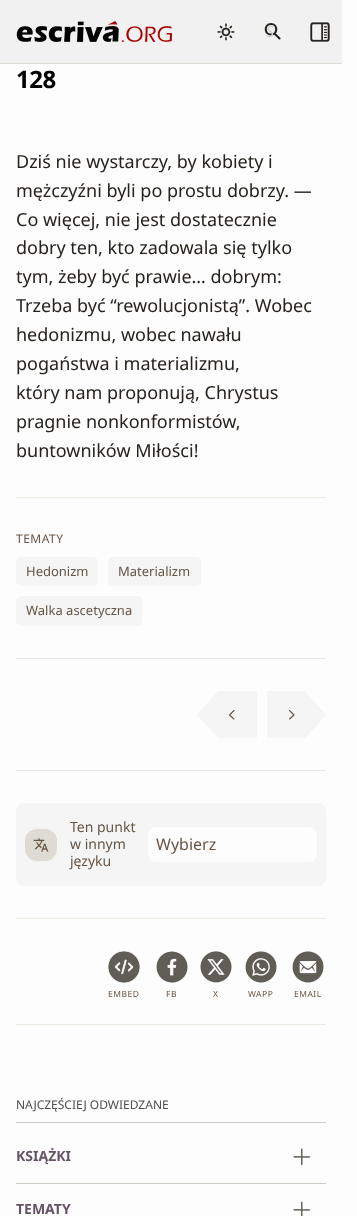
<svg xmlns="http://www.w3.org/2000/svg" width="357" height="1216" viewBox="0 0 357 1216">
  <style>
    .t1 { font: italic 16px Noto Sans; fill: #d2d2d1; }
    .t2 { font: bold 24px Noto Sans; letter-spacing: -0.5px; fill: #000; }
    .t3 { font: 18px Noto Sans; fill: #26221e; }
    .t4 { font: 12px Noto Sans; letter-spacing: 0.5px; fill: #654; }
    .t5 { font: 13px Noto Sans; fill: #654; }
    .t6 { font: 14px Noto Sans; fill: #654; }
    .t7 { font: 16px Noto Sans; fill: #654; }
    .t8 { font: 8.5px Noto Sans; letter-spacing: 0.5px; fill: #654; }
    .t9 { font: 12px Noto Sans; fill: #4d4d4d; }
    .t10 { font: bold 14px Noto Sans; fill: #656; }
  </style>
  <rect width="100%" height="100%" fill="#fdfdfd"/>
  <rect x="0" y="0" width="342" height="63" fill="#f1f1f1"/>
  <rect x="0" y="63" width="342" height="1" fill="#dedbd4"/>
  <image x="16" y="21" width="156" height="21" href="images/1.png"/>
  <image x="217" y="23" width="18" height="18" href="images/2.png"/>
  <path d="M274.5 33.5L279.5 38.5M271 24C278 24 278 34.5 271 34.5C264 34.5 264 24 271 24Z" fill="none" stroke="#26221e" stroke-width="2.1" stroke-linecap="round"/>
  <text x="266" y="37" class="t1">S</text>
  <image x="310" y="22" width="20" height="20" href="images/3.png"/>
  <text x="16" y="88" class="t2">128</text>
  <text x="16" y="168" class="t3">Dziś nie wystarczy, by kobiety i</text>
  <text x="16" y="197" class="t3">mężczyźni byli po prostu dobrzy. —</text>
  <text x="16" y="226" class="t3">Co więcej, nie jest dostatecznie</text>
  <text x="16" y="254" class="t3">dobry ten, kto zadowala się tylko</text>
  <text x="16" y="283" class="t3">tym, żeby być prawie… dobrym:</text>
  <text x="16" y="312" class="t3">Trzeba być “rewolucjonistą”. Wobec</text>
  <text x="16" y="341" class="t3">hedonizmu, wobec nawału</text>
  <text x="16" y="370" class="t3">pogaństwa i materializmu,</text>
  <text x="16" y="399" class="t3">który nam proponują, Chrystus</text>
  <text x="16" y="428" class="t3">pragnie nonkonformistów,</text>
  <text x="16" y="457" class="t3">buntowników Miłości!</text>
  <rect x="16" y="497" width="310" height="1" fill="#ece9e3"/>
  <text x="16" y="543" class="t4">TEMATY</text>
  <rect x="16" y="557" width="82" height="29" rx="5" fill="#f5f5f5"/>
  <text x="26" y="576" class="t5">Hedonizm</text>
  <rect x="108" y="557" width="93" height="29" rx="5" fill="#f5f5f5"/>
  <text x="118" y="576" class="t5">Materializm</text>
  <rect x="16" y="596" width="126" height="30" rx="5" fill="#f5f5f5"/>
  <text x="26" y="615" class="t5">Walka ascetyczna</text>
  <rect x="16" y="658" width="310" height="1" fill="#ece9e3"/>
  <path d="M218 738L197 715L218 691H257V738Z" fill="#f5f5f5"/>
  <path d="M234 719L229.5 715L234 710.5" fill="none" stroke="#654" stroke-width="1.1" stroke-linecap="round" stroke-linejoin="round"/>
  <path d="M267 691H305L326 715L305 738H267Z" fill="#f5f5f5"/>
  <path d="M289.5 710.5L294 715L289.5 719" fill="none" stroke="#654" stroke-width="1.1" stroke-linecap="round" stroke-linejoin="round"/>
  <rect x="16" y="770" width="310" height="1" fill="#ece9e3"/>
  <rect x="16" y="803" width="310" height="83" rx="8" fill="#f5f5f5"/>
  <rect x="25" y="829" width="32" height="32" rx="12" fill="#dedbd4"/>
  <image x="33" y="838" width="16" height="14" href="images/4.png"/>
  <text x="70" y="832" class="t6">Ten punkt</text>
  <text x="70" y="849" class="t6">w innym</text>
  <text x="70" y="866" class="t6">języku</text>
  <rect x="148" y="827" width="169" height="35" rx="8" fill="#fdfdfd"/>
  <text x="156" y="850" class="t7">Wybierz</text>
  <rect x="16" y="918" width="310" height="1" fill="#ece9e3"/>
  <rect x="16" y="1024" width="310" height="1" fill="#ece9e3"/>
  <image x="108" y="951" width="32" height="32" href="images/5.png"/>
  <text x="108" y="997" class="t8">EMBED</text>
  <image x="156" y="951" width="32" height="32" href="images/6.png"/>
  <text x="166" y="997" class="t8">FB</text>
  <image x="200" y="951" width="32" height="32" href="images/7.png"/>
  <text x="213" y="997" class="t8">X</text>
  <image x="245" y="951" width="32" height="32" href="images/8.png"/>
  <text x="248" y="997" class="t8">WAPP</text>
  <image x="292" y="951" width="32" height="32" href="images/9.png"/>
  <text x="294" y="997" class="t8">EMAIL</text>
  <rect x="16" y="1122" width="310" height="1" fill="#cecbc4"/>
  <text x="16" y="1109" class="t9">NAJCZĘŚCIEJ ODWIEDZANE</text>
  <rect x="16" y="1183" width="310" height="1" fill="#cecbc4"/>
  <text x="16" y="1161" class="t10">KSIĄŻKI</text>
  <image x="293" y="1148" width="18" height="18" href="images/10.png"/>
  <text x="16" y="1214" class="t10">TEMATY</text>
  <image x="293" y="1201" width="18" height="15" href="images/11.png"/>
</svg>
